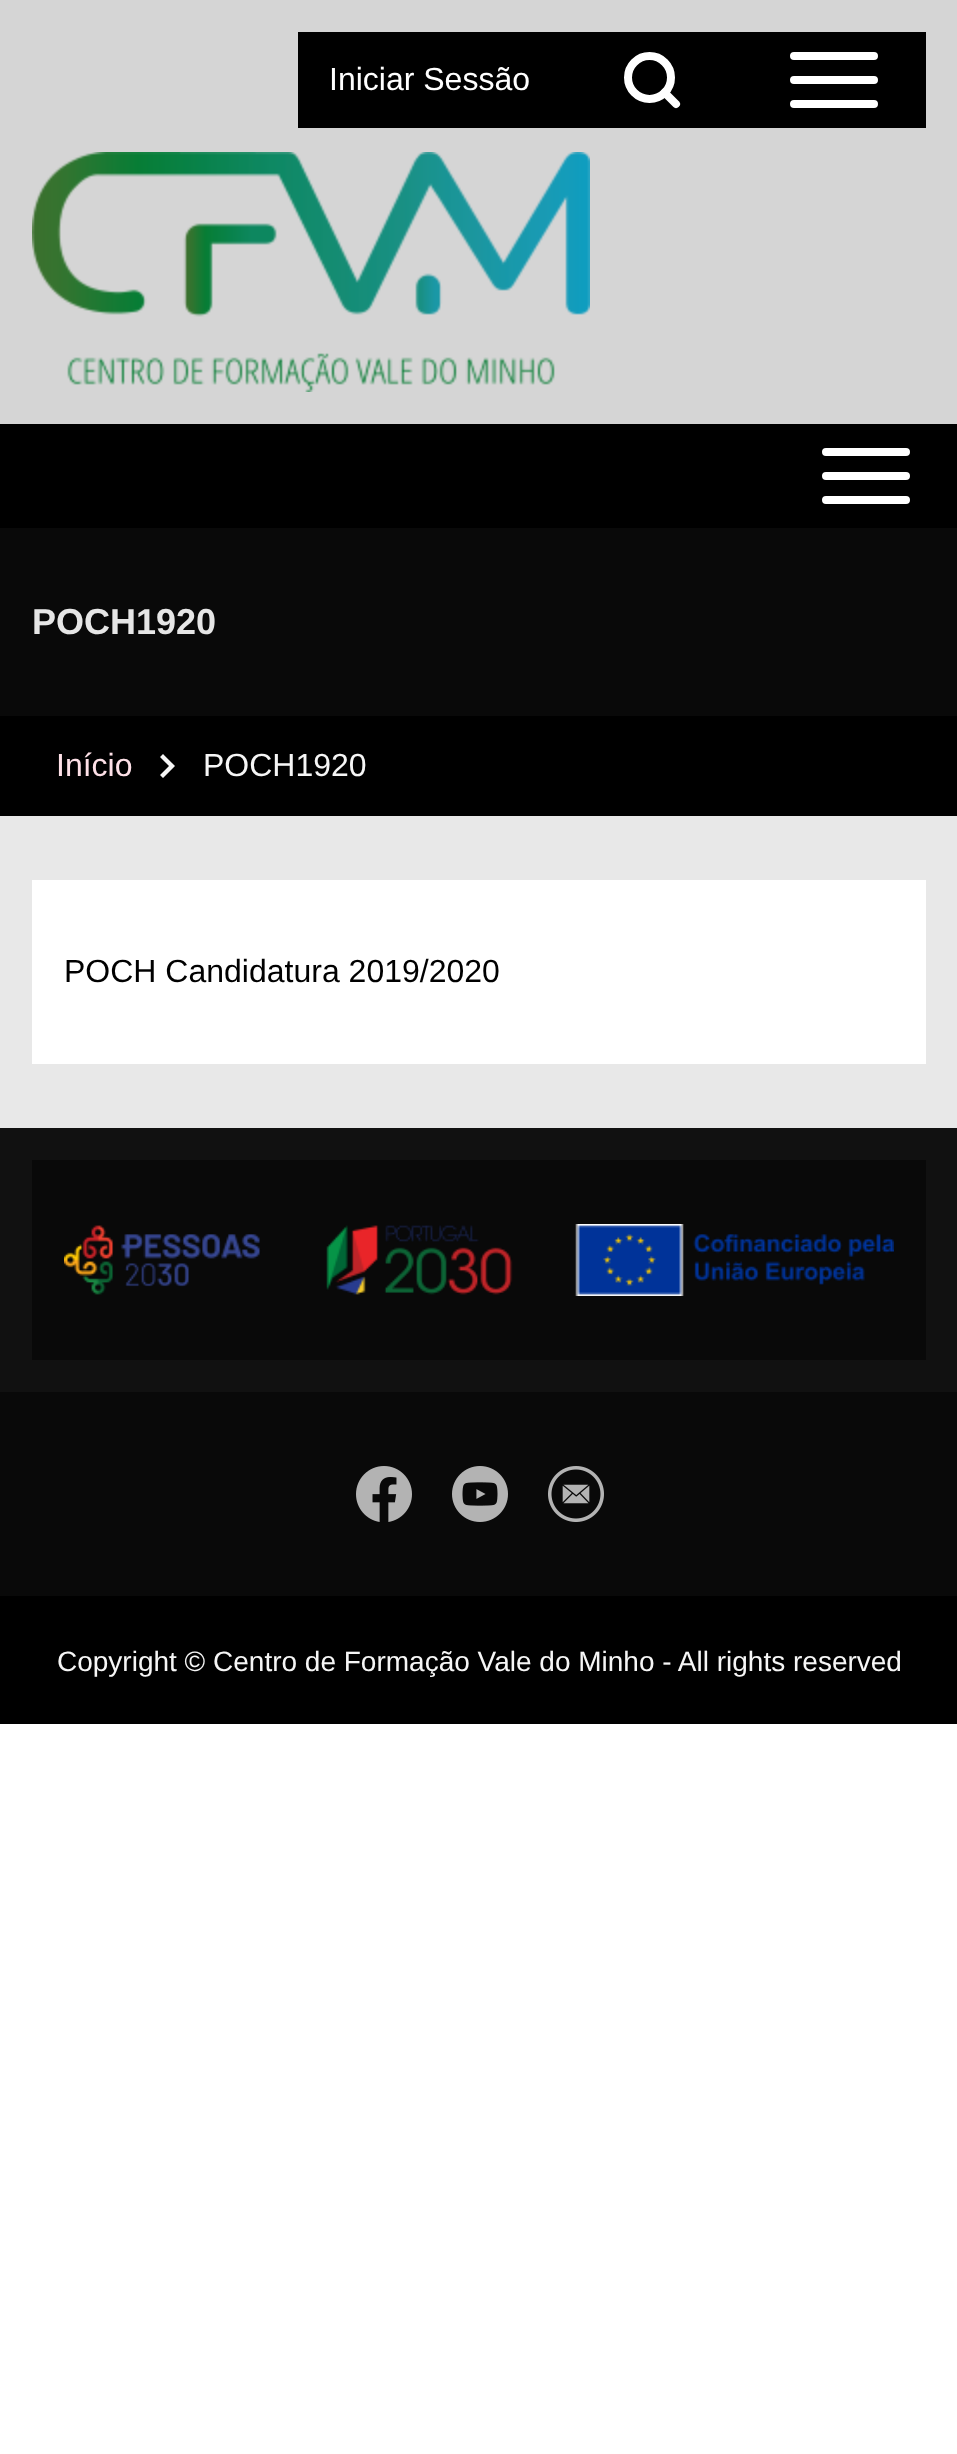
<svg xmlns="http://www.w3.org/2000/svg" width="957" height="2454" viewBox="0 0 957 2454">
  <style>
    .t1 { font: 32px Liberation Sans; fill: #fff; }
    .t2 { font: bold 36px Liberation Sans; fill: #e6e6e6; }
    .t3 { font: 32px Liberation Sans; fill: #fde0e7; }
    .t4 { font: 32px Liberation Sans; fill: #f6f6f6; }
    .t5 { font: 32px Liberation Sans; fill: #000; }
    .t6 { font: 28px Liberation Sans; fill: #f6f6f6; }
  </style>
  <rect width="100%" height="100%" fill="#fff"/>
  <rect x="0" y="0" width="957" height="424" fill="#d5d5d5"/>
  <rect x="298" y="32" width="628" height="96" fill="#000"/>
  <circle cx="649.5" cy="77.5" r="21.5" fill="none" stroke="#fff" stroke-width="8"/>
  <path d="M676 104L664.5 92.5" fill="none" stroke="#fff" stroke-width="8" stroke-linecap="round" stroke-linejoin="round"/>
  <text x="329" y="90" class="t1">Iniciar Sessão</text>
  <path d="M794 104H874Z" fill="none" stroke="#fff" stroke-width="8" stroke-linecap="round" stroke-linejoin="round"/>
  <path d="M794 80H874Z" fill="none" stroke="#fff" stroke-width="8" stroke-linecap="round" stroke-linejoin="round"/>
  <path d="M794 56H874Z" fill="none" stroke="#fff" stroke-width="8" stroke-linecap="round" stroke-linejoin="round"/>
  <image x="32" y="152" width="558" height="240" href="images/1.png"/>
  <rect x="0" y="424" width="957" height="104" fill="#000"/>
  <path d="M826 500H906Z" fill="none" stroke="#fff" stroke-width="8" stroke-linecap="round" stroke-linejoin="round"/>
  <path d="M826 476H906Z" fill="none" stroke="#fff" stroke-width="8" stroke-linecap="round" stroke-linejoin="round"/>
  <path d="M826 452H906Z" fill="none" stroke="#fff" stroke-width="8" stroke-linecap="round" stroke-linejoin="round"/>
  <rect x="0" y="528" width="957" height="188" fill="#090909"/>
  <text x="32" y="634" class="t2">POCH1920</text>
  <rect x="0" y="716" width="957" height="100" fill="#000"/>
  <text x="56" y="776" class="t3">Início</text>
  <path d="M169 766L160 757L163 754L175 766L163 778L160 775Z" fill="#f6f6f6"/>
  <text x="203" y="776" class="t4">POCH1920</text>
  <rect x="0" y="816" width="957" height="312" fill="#e8e8e8"/>
  <rect x="32" y="880" width="894" height="184" fill="#fff"/>
  <text x="64" y="982" class="t5">POCH Candidatura 2019/2020</text>
  <rect x="0" y="1128" width="957" height="264" fill="#111"/>
  <rect x="32" y="1160" width="894" height="200" fill="#090909"/>
  <image x="64" y="1224" width="830" height="72" href="images/2.png"/>
  <rect x="0" y="1392" width="957" height="204" fill="#090909"/>
  <image x="356" y="1466" width="56" height="56" href="images/3.png"/>
  <image x="452" y="1466" width="56" height="56" href="images/4.png"/>
  <image x="548" y="1466" width="56" height="56" href="images/5.png"/>
  <rect x="0" y="1596" width="957" height="128" fill="#000"/>
  <text x="57" y="1671" class="t6">Copyright © Centro de Formação Vale do Minho - All rights reserved</text>
</svg>
